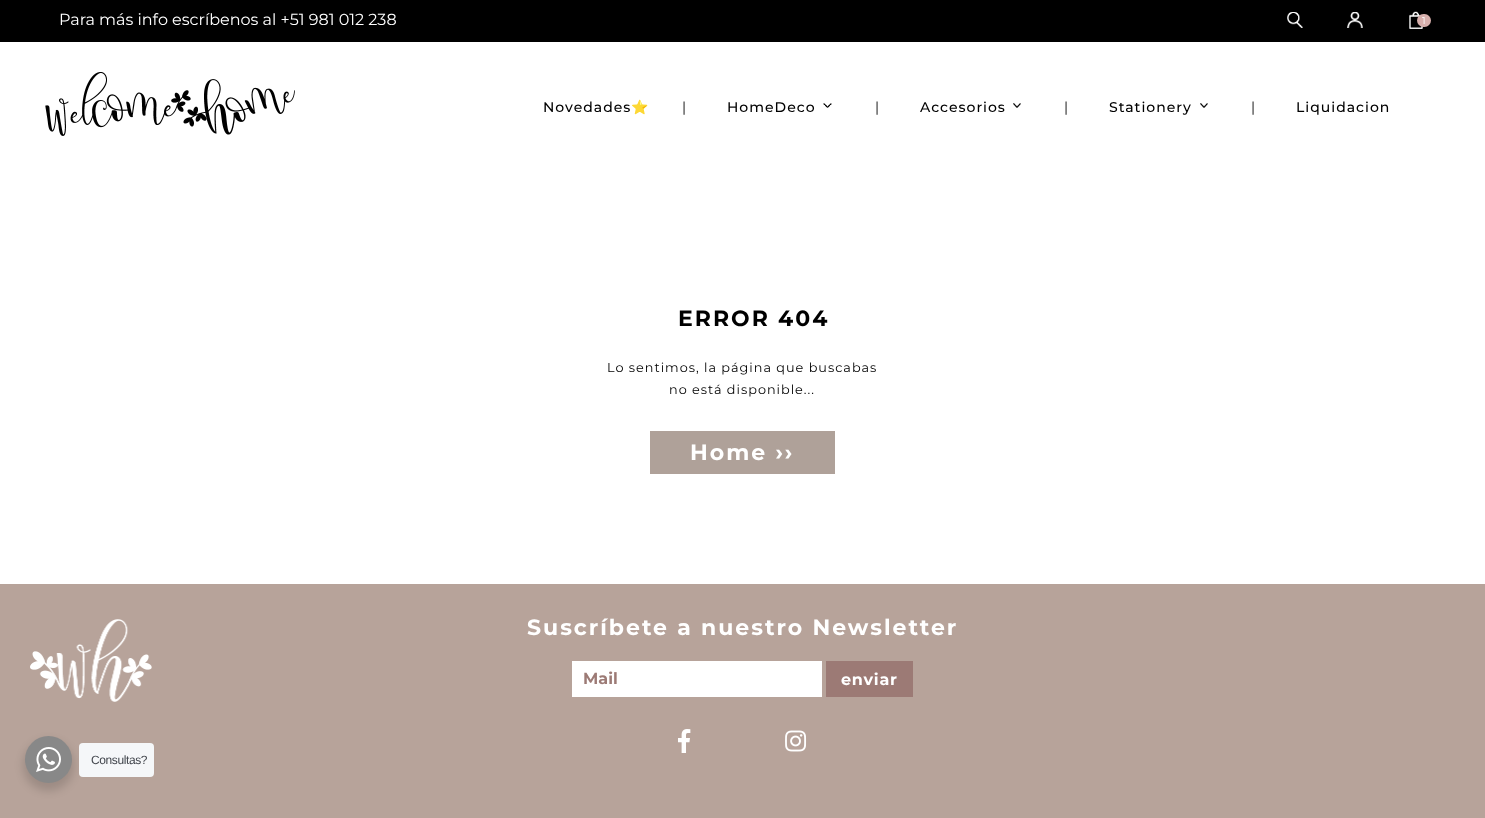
<svg xmlns="http://www.w3.org/2000/svg" width="1485" height="818" viewBox="0 0 1485 818">
  <style>
    .t1 { font: 16px Montserrat; fill: #fff; }
    .t2 { font: 10px Montserrat; fill: #fff; }
    .t3 { font: 500 14px Montserrat; letter-spacing: 1px; fill: #000; }
    .t4 { font: 14px Noto Color Emoji; letter-spacing: 1px; fill: #000; }
    .t5 { font: 14px Montserrat; fill: #000; }
    .t6 { font: bold 22px Montserrat; letter-spacing: 2px; fill: #000; }
    .t7 { font: 12.8px Montserrat; letter-spacing: 1px; fill: #000; }
    .t8 { font: bold 22px Montserrat; letter-spacing: 2px; fill: #fff; }
    .t9 { font: bold 16px Montserrat; fill: #9c7a75; }
    .t10 { font: bold 16px Montserrat; letter-spacing: 0.75px; fill: #fff; }
    .t11 { font: 12px Liberation Sans; letter-spacing: -0.4px; fill: #43474e; }
  </style>
  <rect width="100%" height="100%" fill="#fff"/>
  <rect x="0" y="0" width="1485" height="42" fill="#000"/>
  <text x="59" y="25" class="t1">Para más info escríbenos al +51 981 012 238</text>
  <image x="1287" y="12" width="16" height="16" href="images/1.png"/>
  <image x="1347" y="12" width="16" height="16" href="images/2.png"/>
  <image x="1409" y="11" width="14" height="18" href="images/3.png"/>
  <rect x="1417" y="14" width="14" height="13" rx="6.5" fill="#d8b0ad"/>
  <text x="1422" y="24" class="t2">1</text>
  <image x="45" y="72" width="250" height="64" href="images/4.png"/>
  <text x="543" y="112" class="t3">Novedades</text>
  <text x="631" y="112" class="t4">⭐️</text>
  <text x="682" y="112" class="t5">|</text>
  <text x="727" y="112" class="t3">HomeDeco</text>
  <image x="823" y="103" width="9" height="5" href="images/5.png"/>
  <text x="875" y="112" class="t5">|</text>
  <text x="920" y="112" class="t3">Accesorios</text>
  <image x="1013" y="103" width="8" height="5" href="images/6.png"/>
  <text x="1064" y="112" class="t5">|</text>
  <text x="1109" y="112" class="t3">Stationery</text>
  <image x="1200" y="103" width="8" height="5" href="images/6.png"/>
  <text x="1251" y="112" class="t5">|</text>
  <text x="1296" y="112" class="t3">Liquidacion</text>
  <text x="678" y="326" class="t6">ERROR 404</text>
  <text x="607" y="372" class="t7">Lo sentimos, la página que buscabas</text>
  <text x="669" y="394" class="t7">no está disponible...</text>
  <rect x="650" y="431" width="185" height="43" fill="#afa199"/>
  <text x="690" y="460" class="t8">Home ››</text>
  <rect x="0" y="584" width="1485" height="234" fill="#b7a39a"/>
  <image x="30" y="619" width="122" height="83" href="images/7.png"/>
  <text x="527" y="635" class="t8">Suscríbete a nuestro Newsletter</text>
  <rect x="572" y="661" width="250" height="36" fill="#fff"/>
  <text x="583" y="684" class="t9">Mail</text>
  <rect x="826" y="661" width="87" height="36" fill="#9c7a75"/>
  <text x="841" y="685" class="t10">enviar</text>
  <image x="678" y="729" width="13" height="24" href="images/8.png"/>
  <image x="785" y="730" width="22" height="22" href="images/9.png"/>
  <rect x="23" y="740" width="51" height="51" rx="25.5" fill="#00000024" filter="blur(4px)"/>
  <circle cx="48.5" cy="759.5" r="23.5" fill="#888"/>
  <image x="36" y="747" width="25" height="25" href="images/10.png"/>
  <rect x="79" y="743" width="75" height="34" rx="4" fill="#f5f7f9"/>
  <text x="91" y="764" class="t11">Consultas?</text>
</svg>
